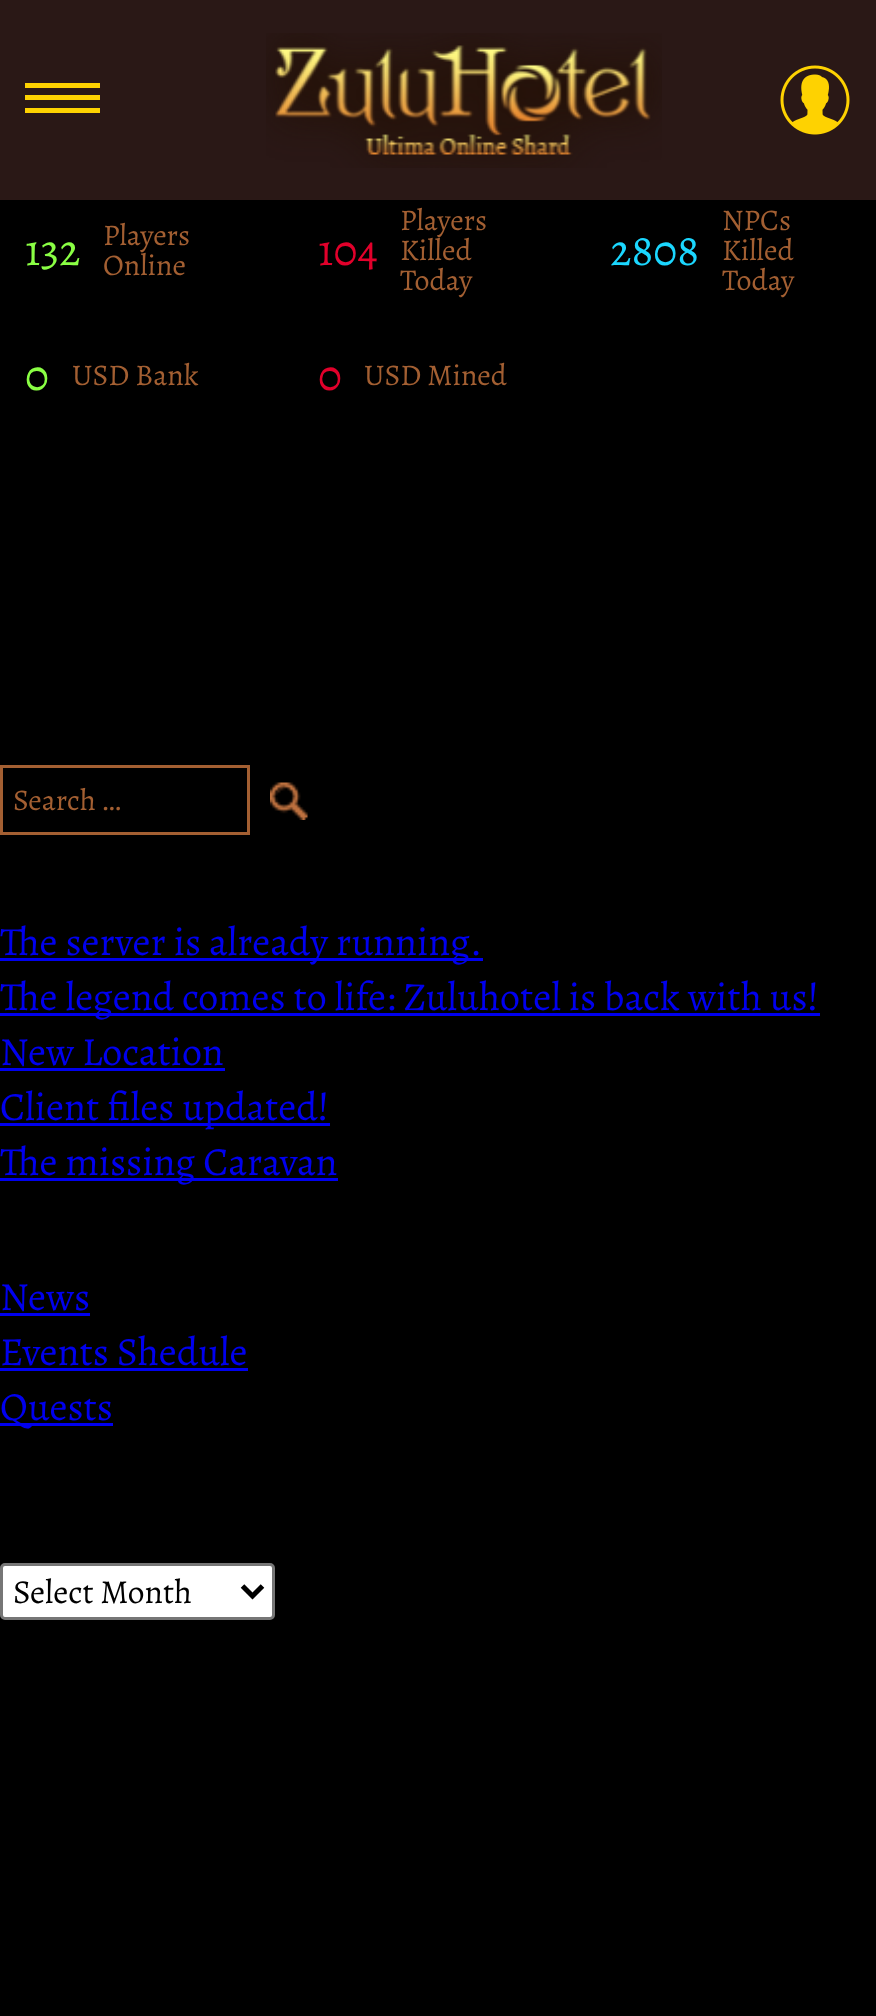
<svg xmlns="http://www.w3.org/2000/svg" width="876" height="2016" viewBox="0 0 876 2016">
  <style>
    .t1 { font: 45px Alegreya; fill: #8aff44; }
    .t2 { font: 30px Alegreya; fill: #a35f32; }
    .t3 { font: 45px Alegreya; fill: #e2002b; }
    .t4 { font: 45px Alegreya; fill: #1bd7ff; }
    .t5 { font: 40px Alegreya; fill: #00e; }
    .t6 { font: 33.5px Alegreya; fill: #000; }
  </style>
  <rect width="100%" height="100%" fill="#000"/>
  <rect x="0" y="0" width="876" height="200" fill="#2a1816"/>
  <rect x="25" y="83" width="75" height="5" fill="#fed201"/>
  <rect x="25" y="95" width="75" height="5" fill="#fed201"/>
  <rect x="25" y="108" width="75" height="5" fill="#fed201"/>
  <image x="266" y="33" width="396" height="135" href="images/1.png"/>
  <image x="780" y="65" width="70" height="70" href="images/2.png"/>
  <text x="25" y="265" class="t1">132</text>
  <text x="103" y="245" class="t2">Players</text>
  <text x="103" y="275" class="t2">Online</text>
  <text x="318" y="265" class="t3">104</text>
  <text x="400" y="230" class="t2">Players</text>
  <text x="400" y="260" class="t2">Killed</text>
  <text x="400" y="290" class="t2">Today</text>
  <text x="610" y="265" class="t4">2808</text>
  <text x="722" y="230" class="t2">NPCs</text>
  <text x="722" y="260" class="t2">Killed</text>
  <text x="722" y="290" class="t2">Today</text>
  <text x="25" y="390" class="t1">0</text>
  <text x="72" y="385" class="t2">USD Bank</text>
  <text x="318" y="390" class="t3">0</text>
  <text x="364" y="385" class="t2">USD Mined</text>
  <rect x="1.5" y="766.5" width="247" height="67" fill="none" stroke="#a35f32" stroke-width="3"/>
  <text x="13" y="810" class="t2">Search …</text>
  <image x="270" y="782" width="38" height="38" href="images/3.png"/>
  <rect x="0" y="958" width="483" height="3" fill="#00e"/>
  <text x="0" y="955" class="t5">The server is already running.</text>
  <rect x="0" y="1013" width="820" height="3" fill="#00e"/>
  <text x="0" y="1010" class="t5">The legend comes to life: Zuluhotel is back with us!</text>
  <text x="0" y="1065" class="t5">New Location</text>
  <rect x="0" y="1068" width="225" height="3" fill="#00e"/>
  <rect x="0" y="1123" width="330" height="3" fill="#00e"/>
  <text x="0" y="1120" class="t5">Client files updated!</text>
  <rect x="0" y="1178" width="338" height="3" fill="#00e"/>
  <text x="0" y="1175" class="t5">The missing Caravan</text>
  <text x="0" y="1310" class="t5">News</text>
  <rect x="0" y="1313" width="90" height="3" fill="#00e"/>
  <text x="0" y="1365" class="t5">Events Shedule</text>
  <rect x="0" y="1368" width="248" height="3" fill="#00e"/>
  <rect x="0" y="1423" width="113" height="3" fill="#00e"/>
  <text x="0" y="1420" class="t5">Quests</text>
  <rect x="1.5" y="1564.5" width="272" height="54" rx="3.5" fill="#fff" stroke="#767676" stroke-width="3"/>
  <path d="M242.5 1586L252.5 1596L262.5 1586" fill="none" stroke="#000" stroke-width="5"/>
  <text x="13" y="1603" class="t6">Select Month</text>
</svg>
